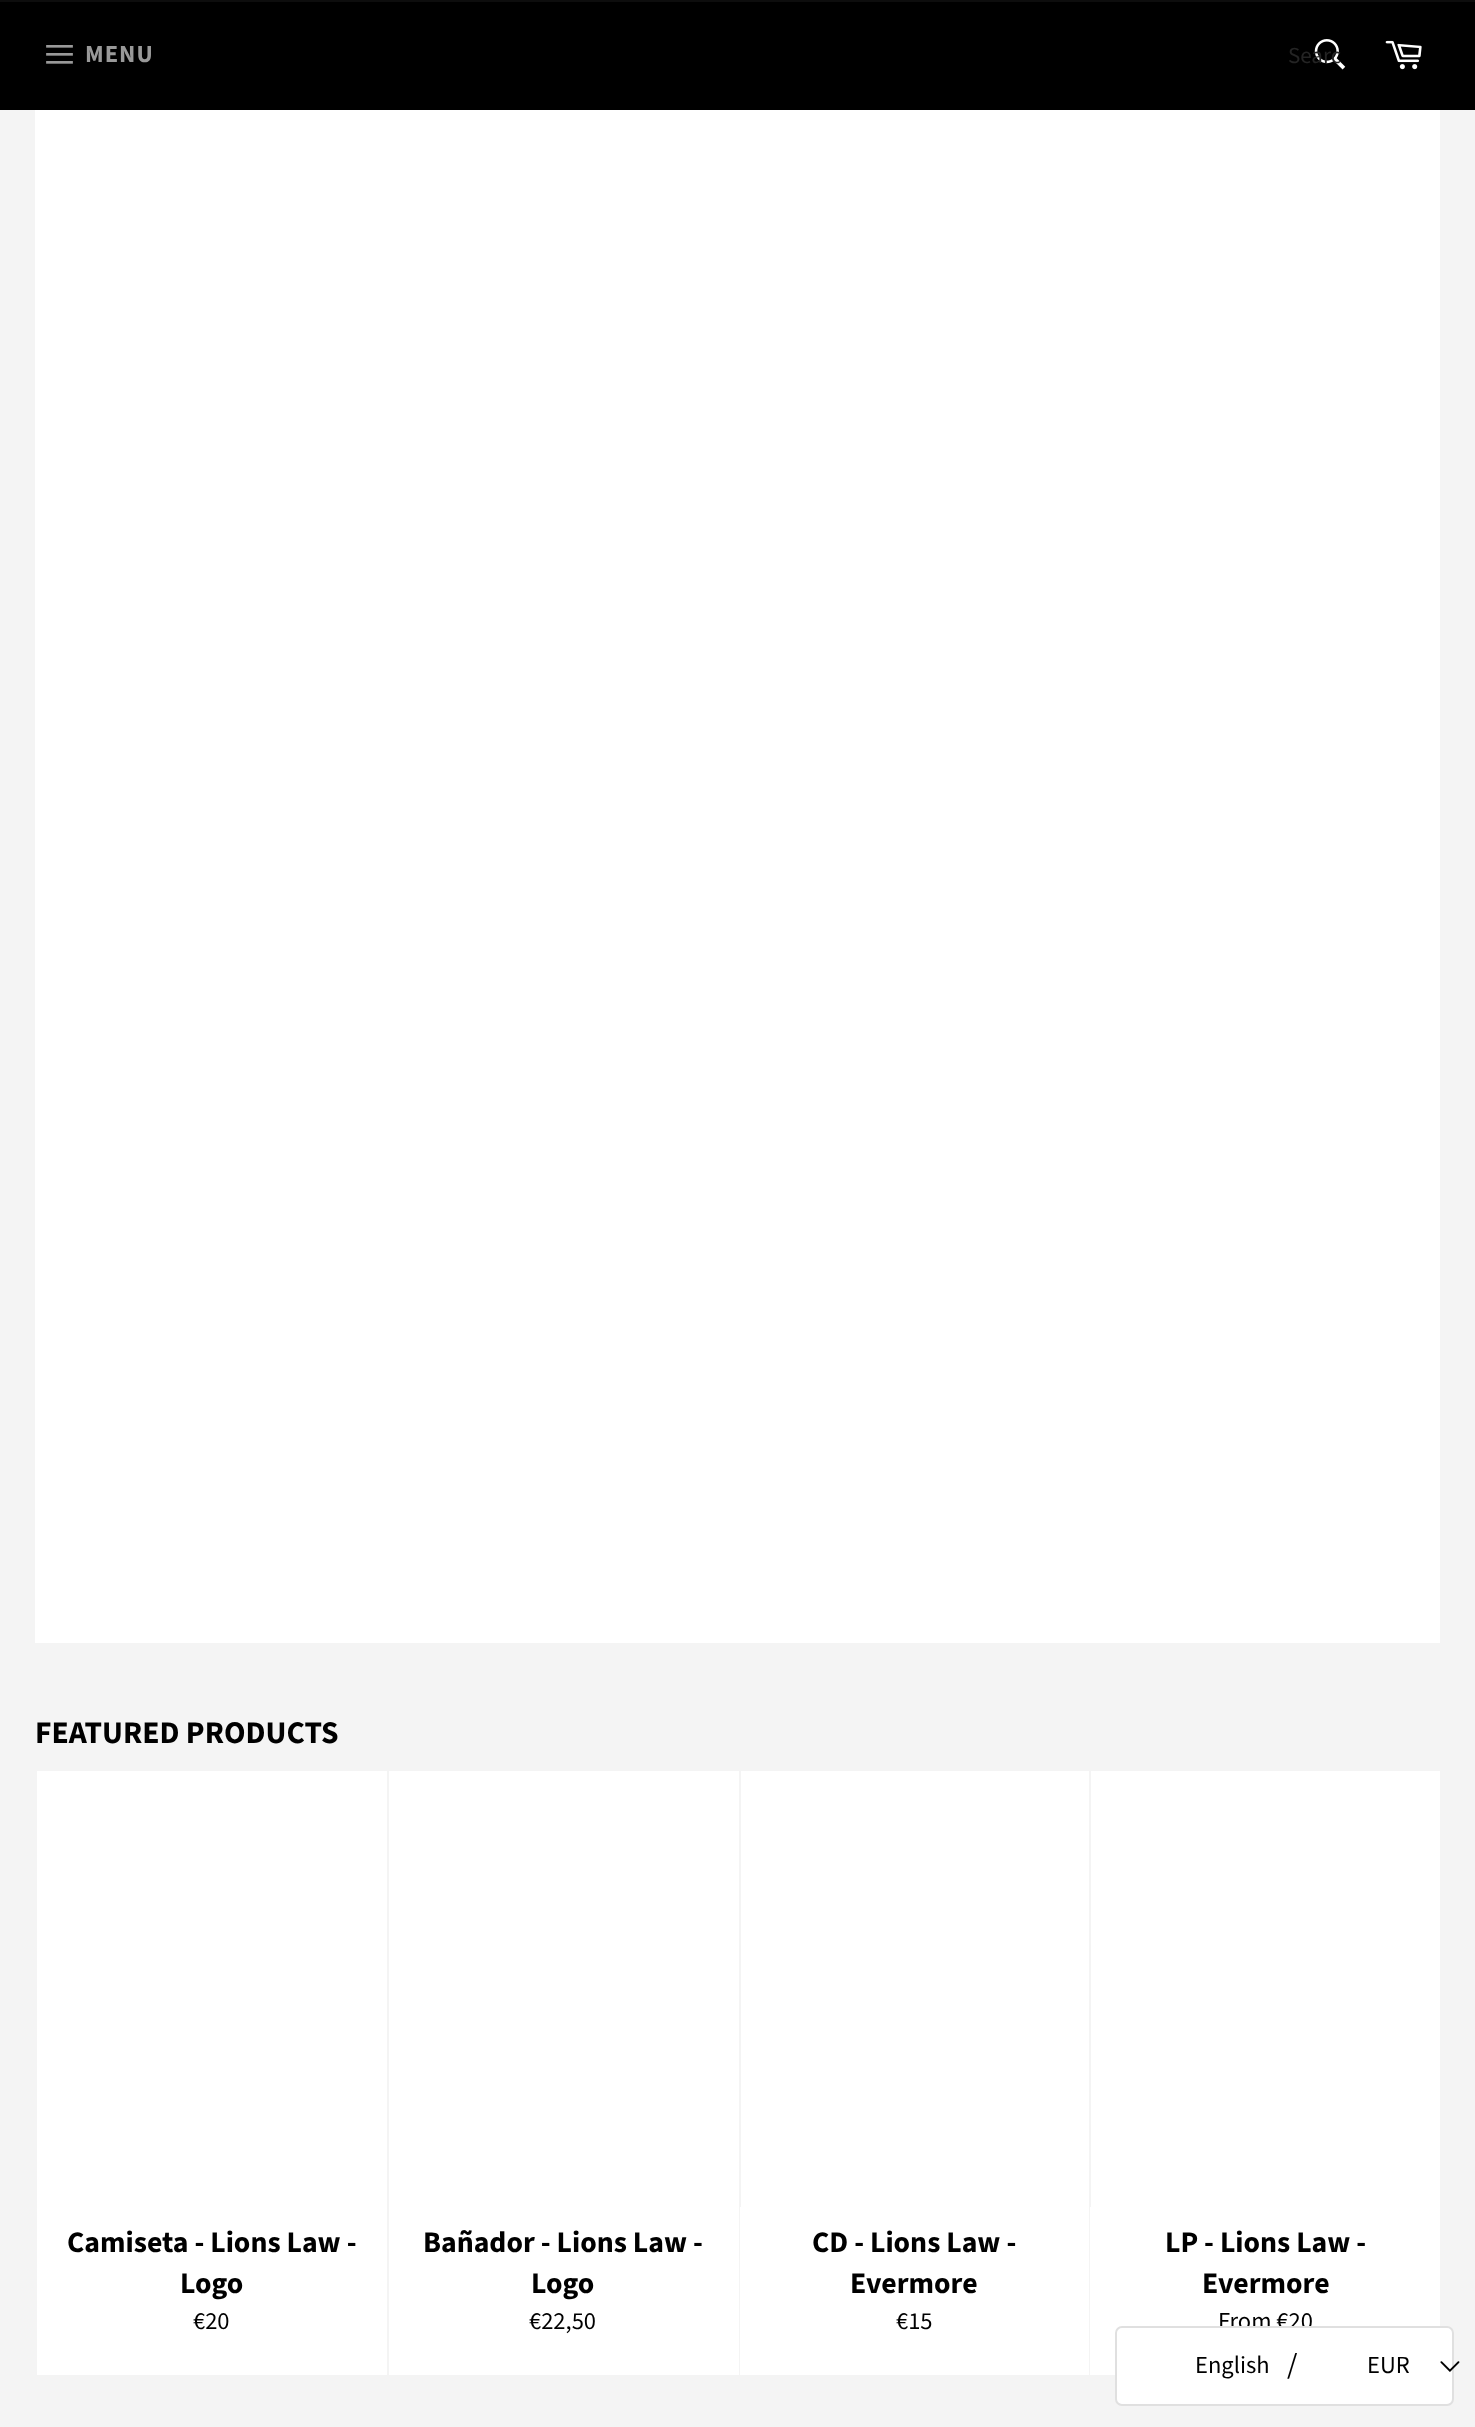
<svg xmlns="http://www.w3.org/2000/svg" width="1475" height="2427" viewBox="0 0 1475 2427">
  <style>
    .t1 { font: bold 24.5px Source Sans Pro; letter-spacing: 1px; fill: #999; }
    .t2 { font: 23px Source Sans Pro; fill: #242424; }
    .t3 { font: bold 31.5px Source Sans Pro; fill: #000; }
    .t4 { font: bold 29.75px Source Sans Pro; fill: #000; }
    .t5 { font: 24.5px Source Sans Pro; fill: #000; }
    .t6 { font: 29.75px Source Sans Pro; fill: #000; }
  </style>
  <rect width="100%" height="100%" fill="#f4f4f4"/>
  <rect x="0" y="2" width="1475" height="108" fill="#000"/>
  <rect x="0" y="0" width="1475" height="2" fill="#0d0d0d"/>
  <image x="46" y="45" width="27" height="19" href="images/1.png"/>
  <text x="85" y="62" class="t1">MENU</text>
  <image x="1314" y="39" width="32" height="31" href="images/2.png"/>
  <text x="1288" y="63" class="t2">Searc</text>
  <image x="1385" y="40" width="37" height="30" href="images/3.png"/>
  <rect x="35" y="110" width="1405" height="1533" fill="#fff"/>
  <text x="35" y="1743" class="t3">FEATURED PRODUCTS</text>
  <rect x="37" y="1771" width="350" height="604" fill="#fff"/>
  <text x="67" y="2252" class="t4">Camiseta - Lions Law -</text>
  <text x="180" y="2293" class="t4">Logo</text>
  <text x="193" y="2329" class="t5">€20</text>
  <rect x="389" y="1771" width="350" height="604" fill="#fff"/>
  <text x="423" y="2252" class="t4">Bañador - Lions Law -</text>
  <text x="531" y="2293" class="t4">Logo</text>
  <text x="529" y="2329" class="t5">€22,50</text>
  <rect x="741" y="1771" width="348" height="436" fill="#fff"/>
  <rect x="740" y="2207" width="349" height="168" fill="#fff"/>
  <text x="812" y="2252" class="t4">CD - Lions Law -</text>
  <text x="850" y="2293" class="t4">Evermore</text>
  <text x="896" y="2329" class="t5">€15</text>
  <rect x="1091" y="1771" width="349" height="436" fill="#fff"/>
  <rect x="1090" y="2207" width="350" height="168" fill="#fff"/>
  <text x="1165" y="2252" class="t4">LP - Lions Law -</text>
  <text x="1202" y="2293" class="t4">Evermore</text>
  <text x="1218" y="2329" class="t5">From €20</text>
  <rect x="1116" y="2327" width="337" height="78" rx="6" fill="#fff" stroke="#e0e0e0" stroke-width="2"/>
  <text x="1195" y="2373" class="t5">English</text>
  <text x="1287" y="2374" class="t6">/</text>
  <text x="1367" y="2373" class="t5">EUR</text>
  <image x="1440" y="2361" width="20" height="11" href="images/4.png"/>
</svg>
